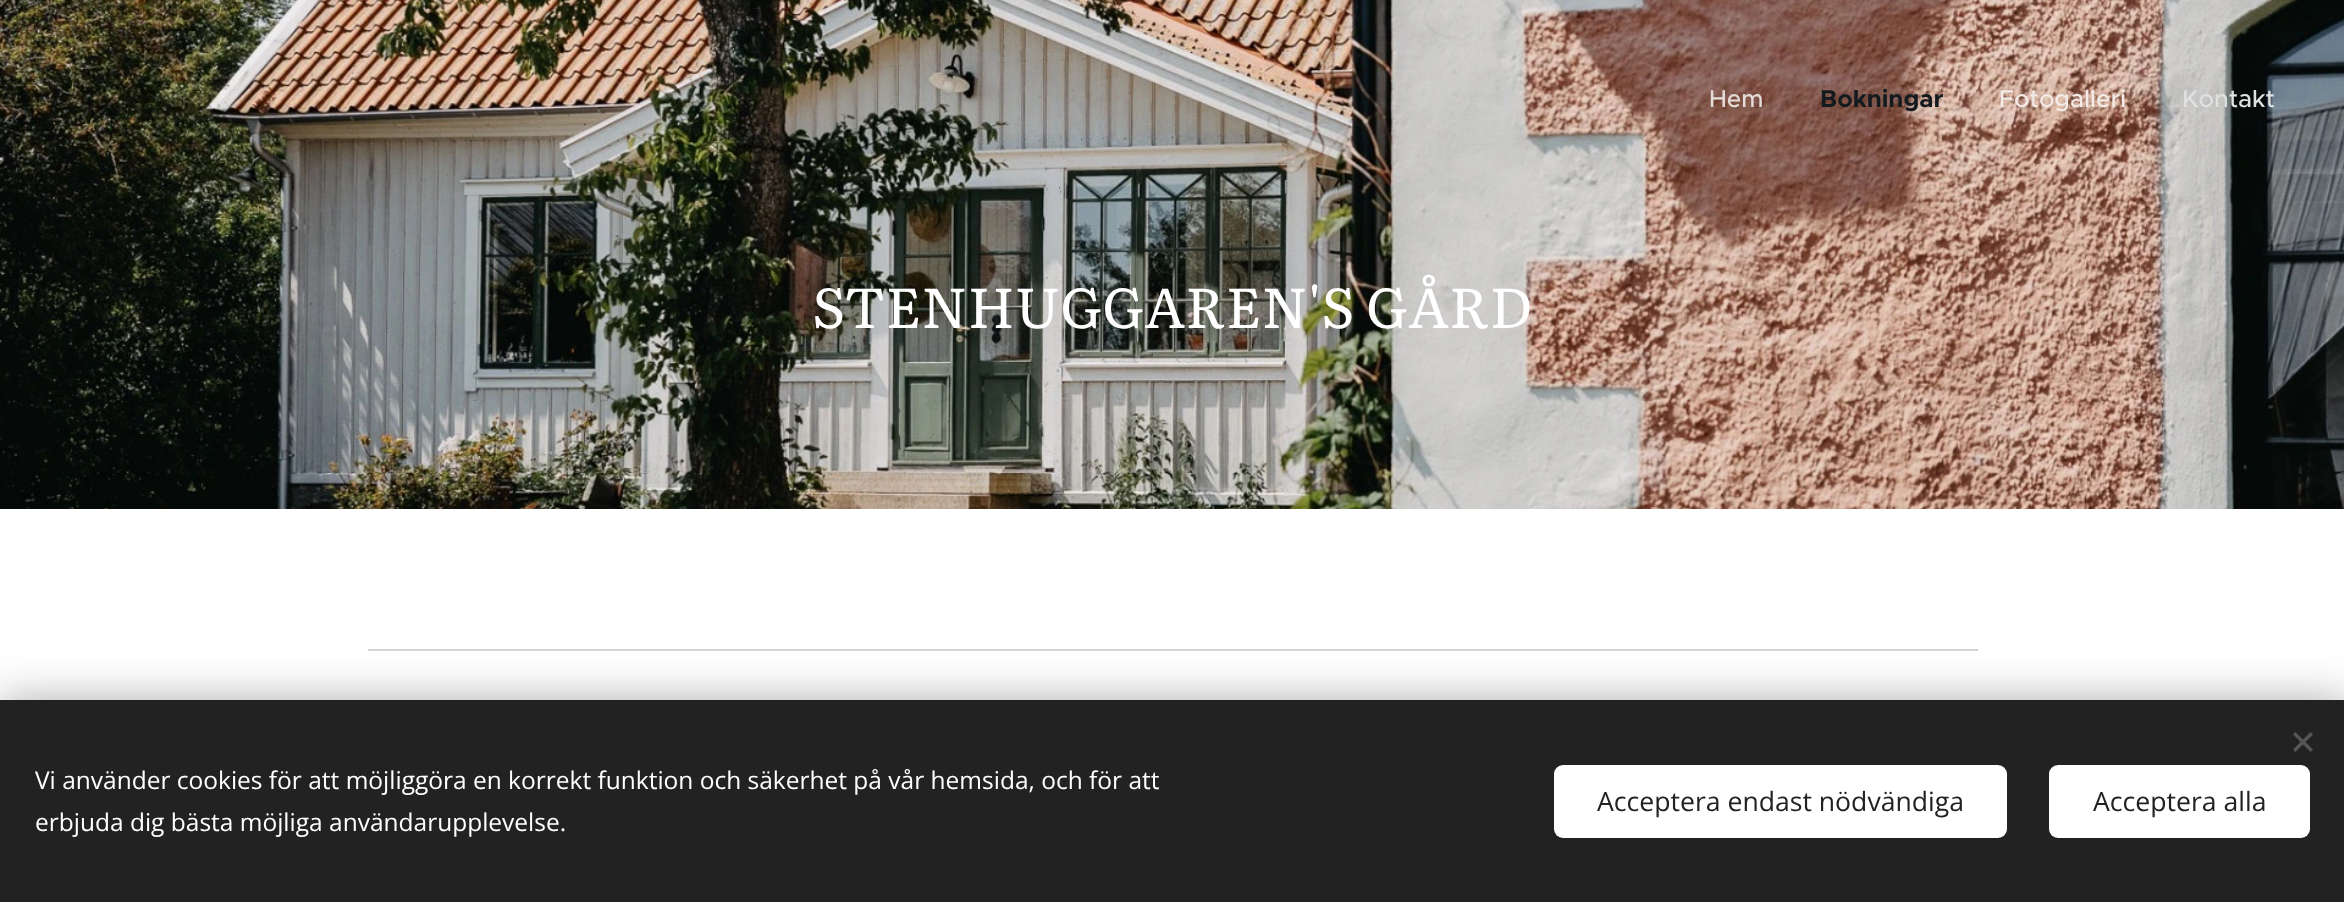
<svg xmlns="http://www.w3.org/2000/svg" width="2344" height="902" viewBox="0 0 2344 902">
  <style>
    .t1 { font: 500 24.5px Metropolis; fill: #e5ddda; }
    .t2 { font: bold 24.5px Metropolis; fill: #141b1e; }
    .t3 { font: 500 24.5px Metropolis; fill: #f3ebe8; }
    .t4 { font: 500 24.5px Metropolis; fill: #e0e1e1; }
    .t5 { font: 56px Literata; fill: #fff; }
    .t6 { font: 24.5px Open Sans; fill: #fff; }
    .t7 { font: 26.6px Open Sans; fill: #222; }
  </style>
  <rect width="100%" height="100%" fill="#fff"/>
  <image x="0" y="0" width="2344" height="509" href="images/1.png"/>
  <text x="1709" y="107" class="t1">Hem</text>
  <text x="1820" y="107" class="t2">Bokningar</text>
  <text x="1999" y="107" class="t3">Fotogalleri</text>
  <text x="2182" y="107" class="t4">Kontakt</text>
  <text x="812" y="328" class="t5">STENHUGGAREN'S GÅRD</text>
  <rect x="368" y="649" width="1610" height="2" fill="#d4d4d4"/>
  <rect x="0" y="700" width="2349" height="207" fill="#00000054" filter="blur(22px)"/>
  <rect x="0" y="700" width="2344" height="202" fill="#222"/>
  <path d="M2293 749.5L2310.5 732L2313 734.5L2295.5 752Z" fill="#555"/>
  <path d="M2295.5 732L2313 749.5L2310.5 752L2293 734.5Z" fill="#555"/>
  <text x="35" y="789" class="t6">Vi använder cookies för att möjliggöra en korrekt funktion och säkerhet på vår hemsida, och för att</text>
  <text x="35" y="831" class="t6">erbjuda dig bästa möjliga användarupplevelse.</text>
  <rect x="1554" y="765" width="453" height="73" rx="9" fill="#fff"/>
  <text x="1597" y="811" class="t7">Acceptera endast nödvändiga</text>
  <rect x="2049" y="765" width="261" height="73" rx="9" fill="#fff"/>
  <text x="2093" y="811" class="t7">Acceptera alla</text>
</svg>
